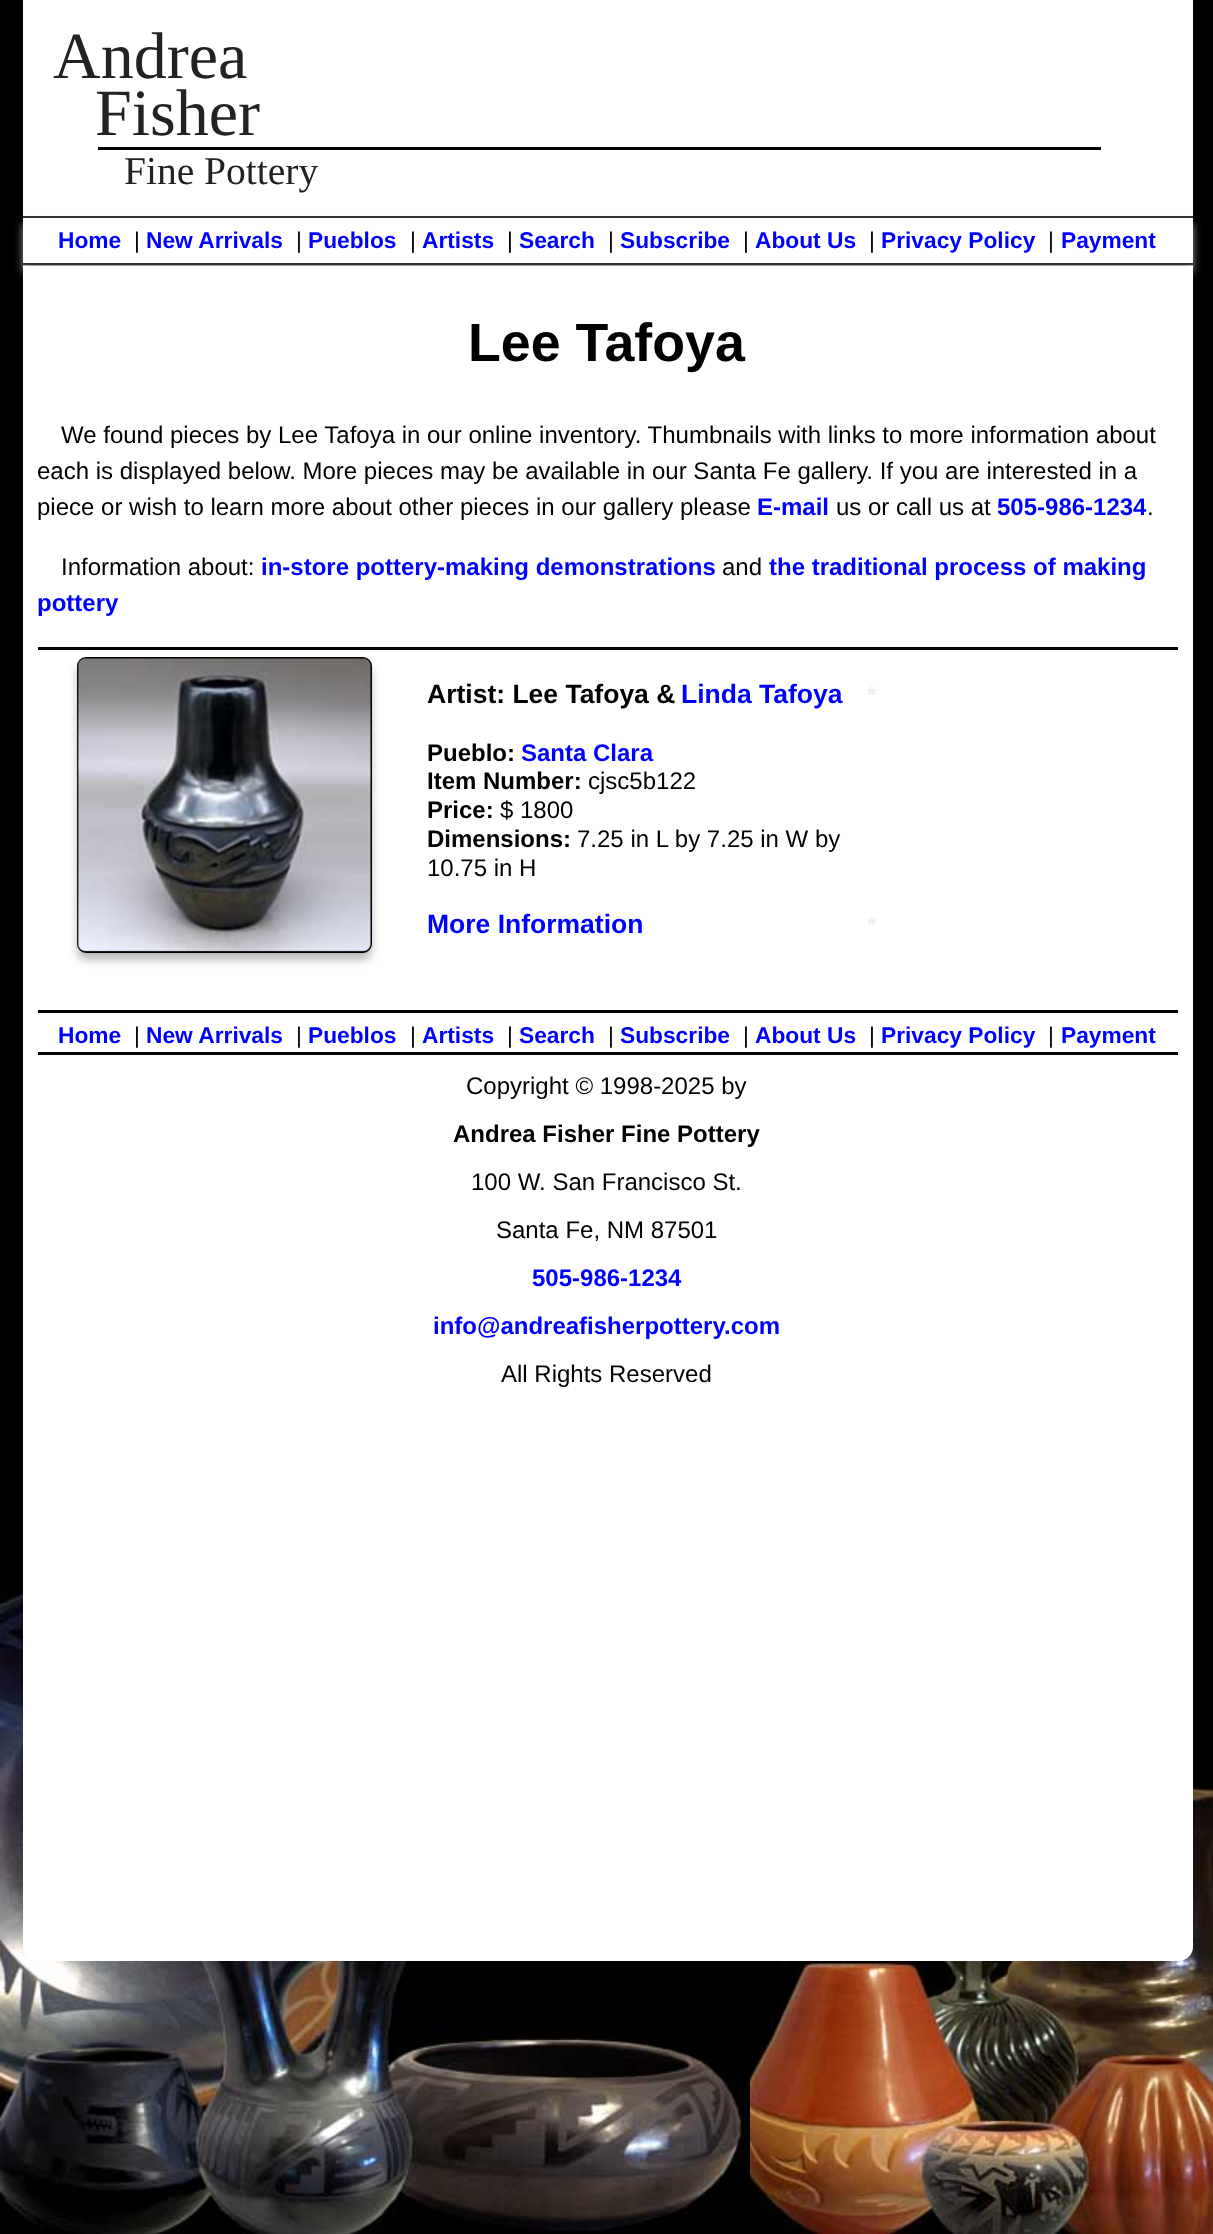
<svg xmlns="http://www.w3.org/2000/svg" width="1213" height="2234" viewBox="0 0 1213 2234">
  <style>
    .t1 { font: 66px Liberation Serif; fill: #222; }
    .t2 { font: 39.5px Liberation Serif; fill: #222; }
    .t3 { font: bold 22.75px Liberation Sans; fill: #00f; }
    .t4 { font: 22.75px Liberation Sans; fill: #000; }
    .t5 { font: bold 53.75px Liberation Sans; fill: #000; }
    .t6 { font: 24px Liberation Sans; fill: #000; }
    .t7 { font: bold 24px Liberation Sans; fill: #00f; }
    .t8 { font: bold 26.5px Liberation Sans; fill: #000; }
    .t9 { font: bold 26.5px Liberation Sans; fill: #00f; }
    .t10 { font: bold 24px Liberation Sans; fill: #eee; }
    .t11 { font: bold 24px Liberation Sans; fill: #000; }
  </style>
  <defs>
    <clipPath id="clip1"><path d="M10 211H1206V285H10ZM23 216H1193V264H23Z" clip-rule="evenodd"/></clipPath>
  </defs>
  <rect width="100%" height="100%" fill="#000"/>
  <image x="0" y="1568" width="1213" height="666" href="images/1.png"/>
  <rect x="23" y="0" width="1170" height="266" fill="#fff"/>
  <text x="53" y="78" class="t1">Andrea</text>
  <text x="95" y="135" class="t1">Fisher</text>
  <rect x="98" y="147" width="1003" height="3" fill="#000"/>
  <text x="124" y="184" class="t2">Fine Pottery</text>
  <g clip-path="url(#clip1)">
    <rect x="23" y="224" width="1170" height="48" fill="#999" filter="blur(4px)"/>
  </g>
  <rect x="23" y="216" width="1170" height="2" fill="#333"/>
  <rect x="23" y="263" width="1170" height="2" fill="#333"/>
  <text x="58" y="248" class="t3">Home</text>
  <text x="134" y="248" class="t4">|</text>
  <text x="146" y="248" class="t3">New Arrivals</text>
  <text x="296" y="248" class="t4">|</text>
  <text x="308" y="248" class="t3">Pueblos</text>
  <text x="410" y="248" class="t4">|</text>
  <text x="422" y="248" class="t3">Artists</text>
  <text x="507" y="248" class="t4">|</text>
  <text x="519" y="248" class="t3">Search</text>
  <text x="608" y="248" class="t4">|</text>
  <text x="620" y="248" class="t3">Subscribe</text>
  <text x="743" y="248" class="t4">|</text>
  <text x="755" y="248" class="t3">About Us</text>
  <text x="869" y="248" class="t4">|</text>
  <text x="881" y="248" class="t3">Privacy Policy</text>
  <text x="1048" y="248" class="t4">|</text>
  <text x="1061" y="248" class="t3">Payment</text>
  <path d="M23 266H1193V1947C1193 1954.5 1186.5 1961 1179 1961H37C29.5 1961 23 1954.5 23 1947Z" fill="#fff"/>
  <text x="468" y="361" class="t5">Lee Tafoya</text>
  <text x="61" y="443" class="t6">We found pieces by Lee Tafoya in our online inventory. Thumbnails with links to more information about</text>
  <text x="37" y="479" class="t6">each is displayed below. More pieces may be available in our Santa Fe gallery. If you are interested in a</text>
  <text x="37" y="515" class="t6">piece or wish to learn more about other pieces in our gallery please</text>
  <text x="757" y="515" class="t7">E-mail</text>
  <text x="836" y="515" class="t6">us or call us at</text>
  <text x="997" y="515" class="t7">505-986-1234</text>
  <text x="1147" y="515" class="t6">.</text>
  <text x="61" y="575" class="t6">Information about:</text>
  <text x="261" y="575" class="t7">in-store pottery-making demonstrations</text>
  <text x="722" y="575" class="t6">and</text>
  <text x="769" y="575" class="t7">the traditional process of making</text>
  <text x="37" y="611" class="t7">pottery</text>
  <rect x="38" y="647" width="1140" height="3" fill="#000"/>
  <rect x="77" y="665" width="295" height="295" rx="9" fill="#bbb" filter="blur(4px)"/>
  <rect x="78" y="658" width="293" height="294" rx="8" fill="none" stroke="#000" stroke-width="2"/>
  <image x="77" y="658" width="294" height="294" href="images/2.png"/>
  <text x="427" y="703" class="t8">Artist: Lee Tafoya &amp;</text>
  <text x="681" y="703" class="t9">Linda Tafoya</text>
  <text x="867" y="703" class="t10">*</text>
  <text x="427" y="761" class="t11">Pueblo:</text>
  <text x="521" y="761" class="t7">Santa Clara</text>
  <text x="427" y="789" class="t11">Item Number:</text>
  <text x="588" y="789" class="t6">cjsc5b122</text>
  <text x="427" y="818" class="t11">Price:</text>
  <text x="500" y="818" class="t6">$ 1800</text>
  <text x="427" y="847" class="t11">Dimensions:</text>
  <text x="577" y="847" class="t6">7.25 in L by 7.25 in W by</text>
  <text x="427" y="876" class="t6">10.75 in H</text>
  <text x="427" y="933" class="t9">More Information</text>
  <text x="867" y="933" class="t10">*</text>
  <rect x="38" y="1010" width="1140" height="3" fill="#000"/>
  <text x="58" y="1043" class="t3">Home</text>
  <text x="134" y="1043" class="t4">|</text>
  <text x="146" y="1043" class="t3">New Arrivals</text>
  <text x="296" y="1043" class="t4">|</text>
  <text x="308" y="1043" class="t3">Pueblos</text>
  <text x="410" y="1043" class="t4">|</text>
  <text x="422" y="1043" class="t3">Artists</text>
  <text x="507" y="1043" class="t4">|</text>
  <text x="519" y="1043" class="t3">Search</text>
  <text x="608" y="1043" class="t4">|</text>
  <text x="620" y="1043" class="t3">Subscribe</text>
  <text x="743" y="1043" class="t4">|</text>
  <text x="755" y="1043" class="t3">About Us</text>
  <text x="869" y="1043" class="t4">|</text>
  <text x="881" y="1043" class="t3">Privacy Policy</text>
  <text x="1048" y="1043" class="t4">|</text>
  <text x="1061" y="1043" class="t3">Payment</text>
  <rect x="38" y="1052" width="1140" height="3" fill="#000"/>
  <text x="466" y="1094" class="t6">Copyright © 1998-2025 by</text>
  <text x="453" y="1142" class="t11">Andrea Fisher Fine Pottery</text>
  <text x="471" y="1190" class="t6">100 W. San Francisco St.</text>
  <text x="496" y="1238" class="t6">Santa Fe, NM 87501</text>
  <text x="532" y="1286" class="t7">505-986-1234</text>
  <text x="433" y="1334" class="t7">info@andreafisherpottery.com</text>
  <text x="501" y="1382" class="t6">All Rights Reserved</text>
</svg>
